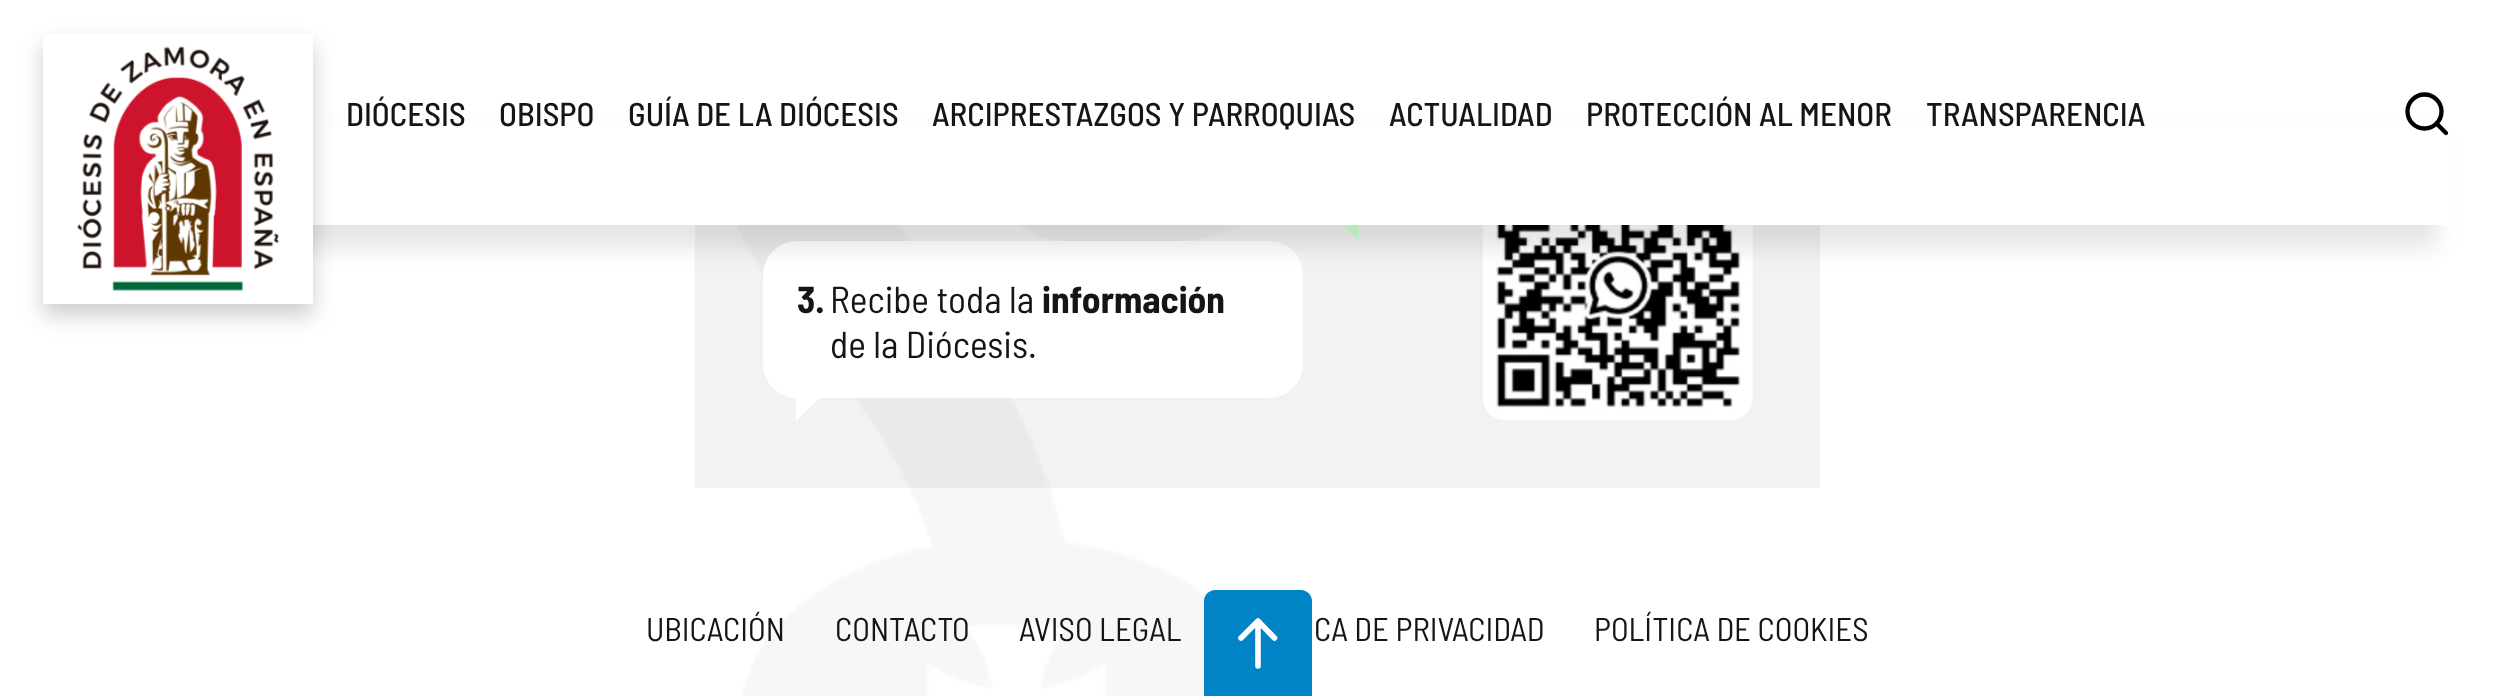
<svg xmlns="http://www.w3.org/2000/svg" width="2514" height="696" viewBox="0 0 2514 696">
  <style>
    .t1 { font: 500 33px Barlow Semi Condensed; fill: #151515; }
    .t2 { font: bold 37.5px Barlow Semi Condensed; fill: #151515; }
    .t3 { font: 37.5px Barlow Semi Condensed; fill: #151515; }
    .t4 { font: 32.75px Barlow Semi Condensed; fill: #151515; }
  </style>
  <rect width="100%" height="100%" fill="#fff"/>
  <image x="738" y="225" width="503" height="471" href="images/2.png"/>
  <rect x="695" y="225" width="1125" height="263" fill="#0000000d"/>
  <path d="M1359 187V241L1332 214Z" fill="#d2ffd4"/>
  <rect x="763" y="241" width="540" height="157" rx="34" fill="#fff"/>
  <image x="1483" y="225" width="270" height="195" href="images/3.png"/>
  <rect x="79" y="135" width="2358" height="113" fill="#0000001a" filter="blur(11px)"/>
  <rect x="65" y="121" width="2386" height="104" fill="#fff"/>
  <rect x="43" y="45" width="270" height="270" fill="#00000033" filter="blur(11px)"/>
  <rect x="43" y="34" width="270" height="270" fill="#fff"/>
  <image x="77" y="46" width="202" height="245" href="images/1.png"/>
  <text x="346" y="126" class="t1">DIÓCESIS</text>
  <text x="499" y="126" class="t1">OBISPO</text>
  <text x="628" y="126" class="t1">GUÍA DE LA DIÓCESIS</text>
  <text x="932" y="126" class="t1">ARCIPRESTAZGOS Y PARROQUIAS</text>
  <text x="1389" y="126" class="t1">ACTUALIDAD</text>
  <text x="1586" y="126" class="t1">PROTECCIÓN AL MENOR</text>
  <text x="1926" y="126" class="t1">TRANSPARENCIA</text>
  <circle cx="2424.5" cy="111.5" r="17" fill="none" stroke="#000" stroke-width="4.3"/>
  <path d="M2446 133L2436.5 123.5" fill="none" stroke="#000" stroke-width="4.3" stroke-linecap="round" stroke-linejoin="round"/>
  <text x="797" y="313" class="t2">3.</text>
  <text x="830" y="313" class="t3">Recibe toda la</text>
  <text x="1042" y="313" class="t2">información</text>
  <text x="830" y="358" class="t3">de la Diócesis.</text>
  <path d="M796 421V367L824 394Z" fill="#fff"/>
  <text x="646" y="641" class="t4">UBICACIÓN</text>
  <text x="835" y="641" class="t4">CONTACTO</text>
  <text x="1019" y="641" class="t4">AVISO LEGAL</text>
  <text x="1314" y="641" class="t4">CA DE PRIVACIDAD</text>
  <text x="1594" y="641" class="t4">POLÍTICA DE COOKIES</text>
  <path d="M1215 590H1301C1307 590 1312 595 1312 601V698H1204V601C1204 595 1209 590 1215 590Z" fill="#0084c5"/>
  <path d="M1258 666V621M1241 638L1258 621L1274.5 638" fill="none" stroke="#fff" stroke-width="5.6" stroke-linecap="round" stroke-linejoin="round"/>
</svg>
